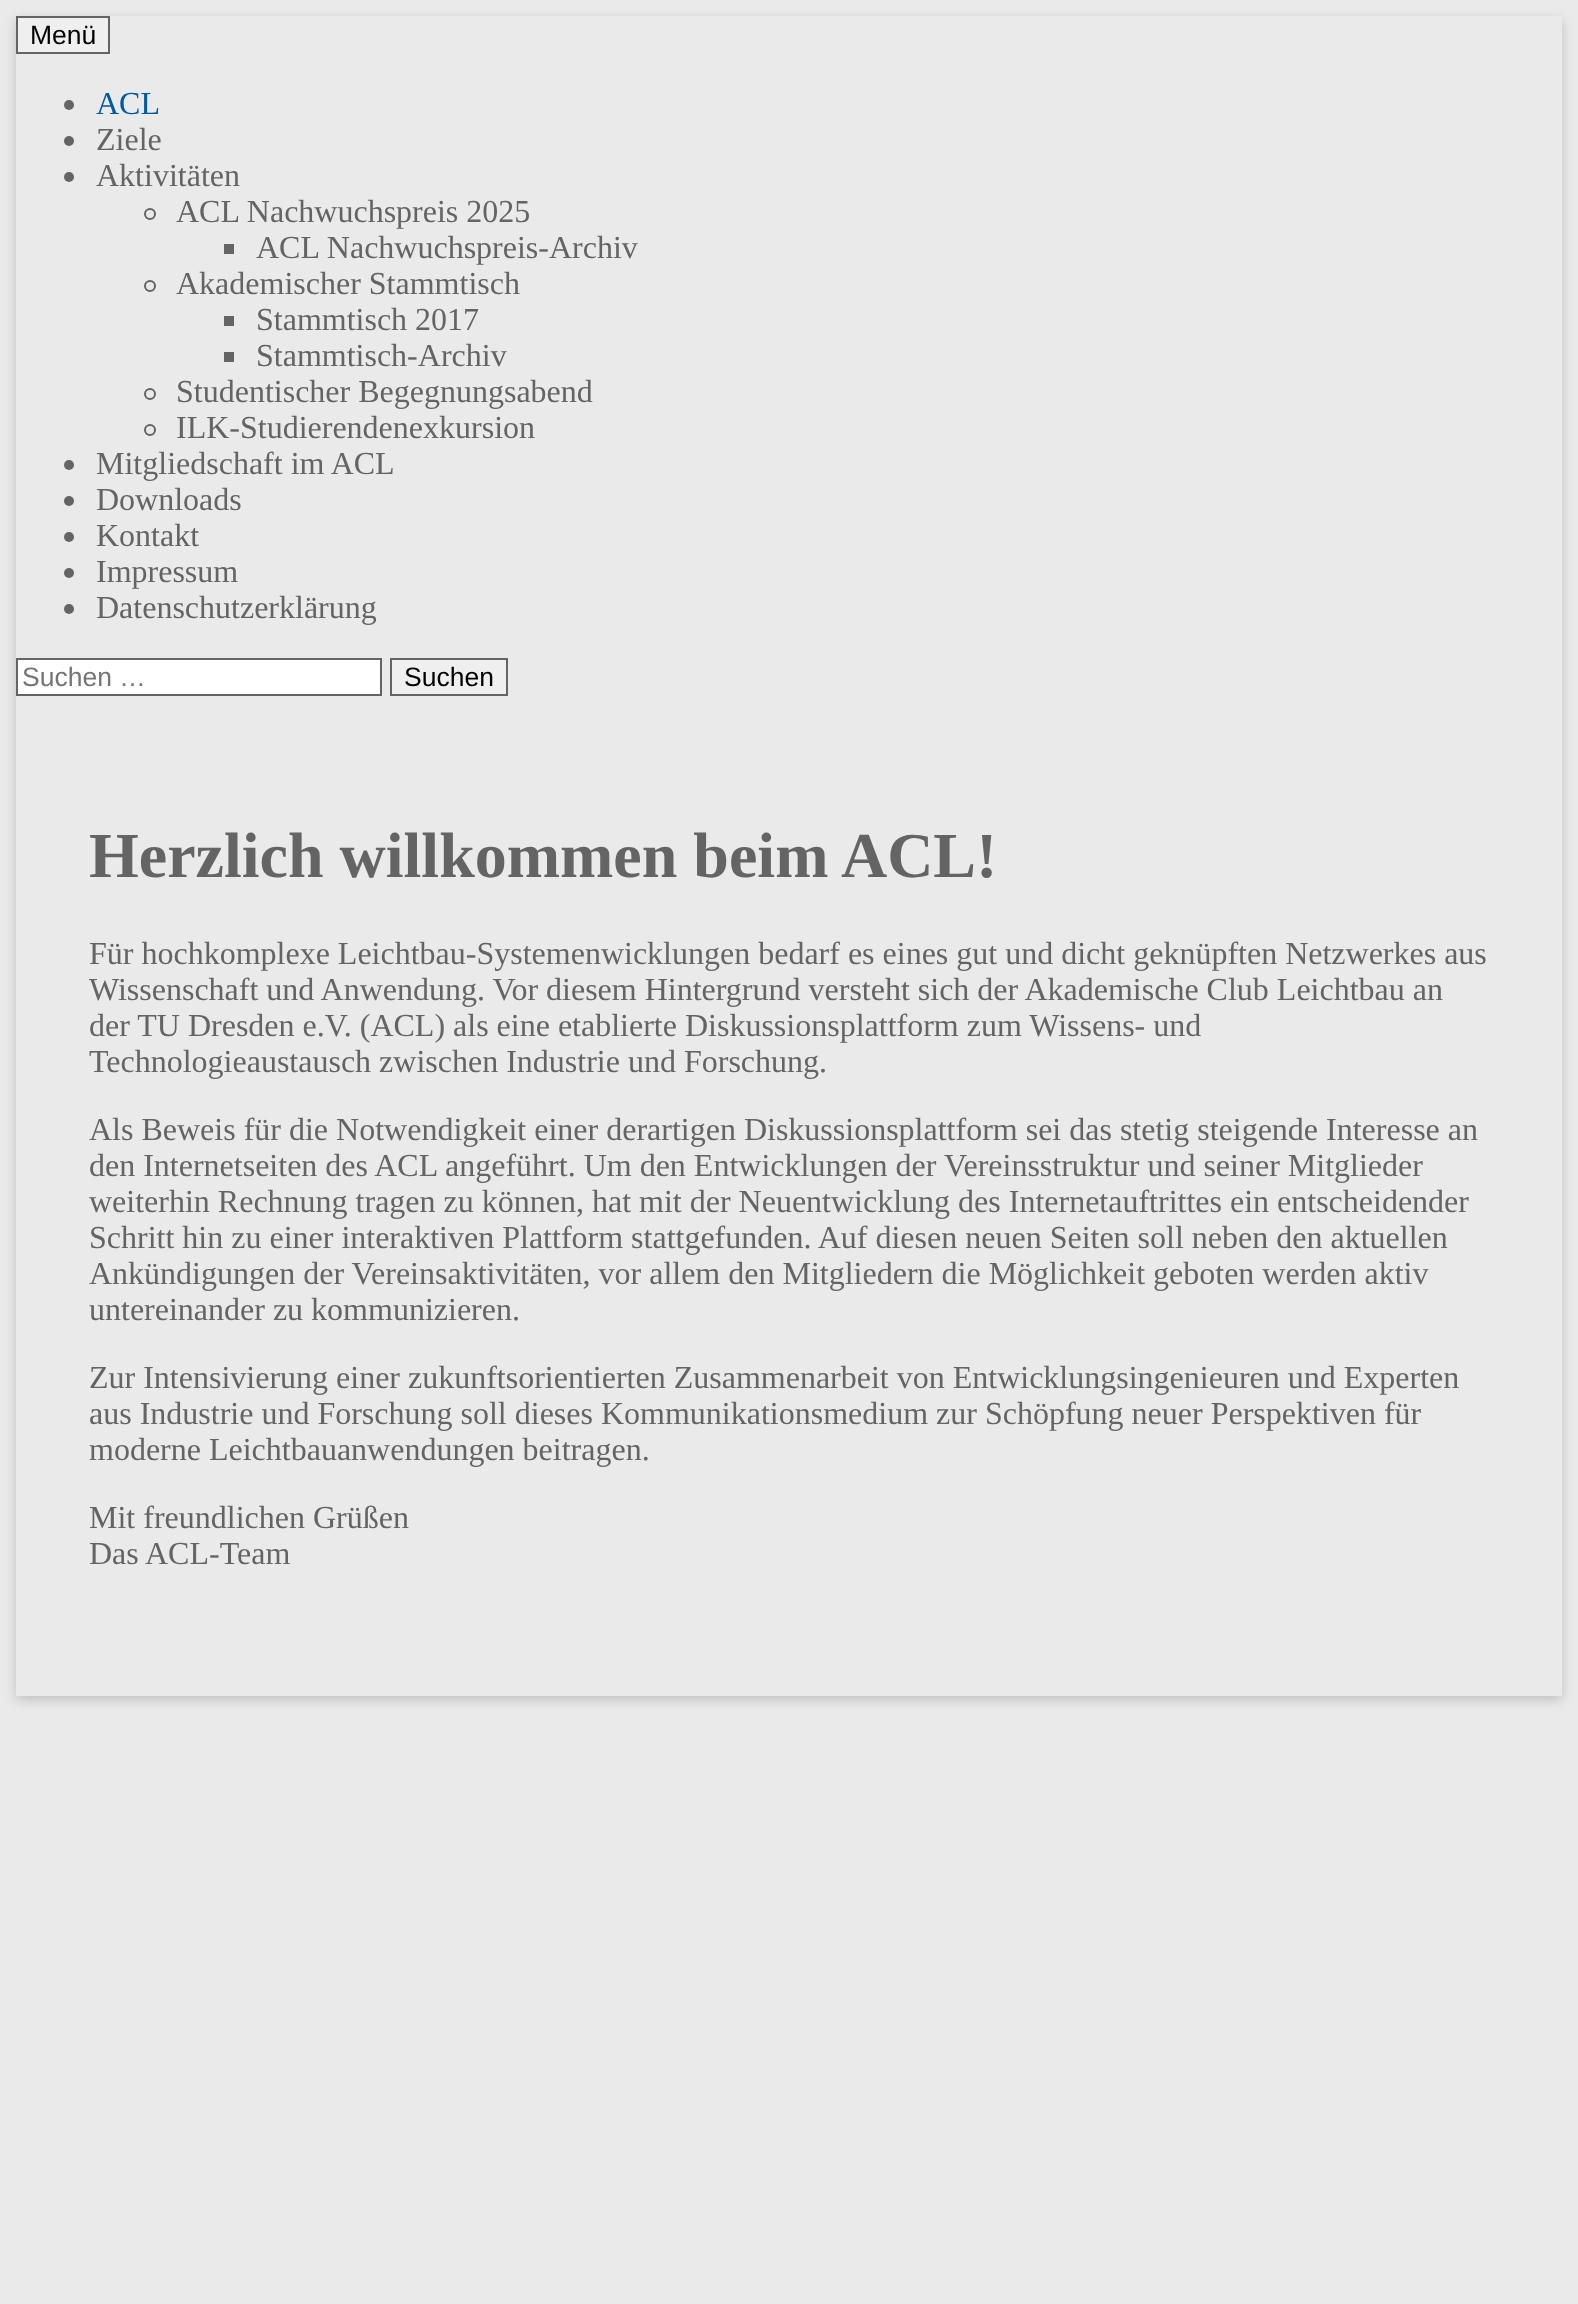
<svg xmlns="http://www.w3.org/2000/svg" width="1578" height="2304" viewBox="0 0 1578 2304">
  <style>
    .t1 { font: 26.5px Liberation Sans; fill: #000; }
    .t2 { font: 32px Liberation Serif; fill: #0059a3; }
    .t3 { font: 32px Liberation Serif; fill: #646464; }
    .t4 { font: 26.5px Liberation Sans; fill: #757575; }
    .t5 { font: bold 64px Liberation Serif; fill: #646464; }
  </style>
  <defs>
    <clipPath id="clip1"><path d="M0 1H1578V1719H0ZM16 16H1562V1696H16Z" clip-rule="evenodd"/></clipPath>
  </defs>
  <rect width="100%" height="100%" fill="#eaeaea"/>
  <g clip-path="url(#clip1)">
    <rect x="16" y="20" width="1546" height="1680" fill="#6464644d" filter="blur(6px)"/>
  </g>
  <rect x="17" y="17" width="92" height="36" fill="#efefef" stroke="#646464" stroke-width="2"/>
  <text x="30" y="44" class="t1">Menü</text>
  <circle cx="69" cy="105" r="5" fill="#646464"/>
  <text x="96" y="114" class="t2">ACL</text>
  <circle cx="69" cy="141" r="5" fill="#646464"/>
  <text x="96" y="150" class="t3">Ziele</text>
  <circle cx="69" cy="177" r="5" fill="#646464"/>
  <text x="96" y="186" class="t3">Aktivitäten</text>
  <circle cx="150" cy="214" r="5" fill="none" stroke="#646464" stroke-width="2"/>
  <text x="176" y="222" class="t3">ACL Nachwuchspreis 2025</text>
  <rect x="224" y="244" width="10" height="10" fill="#646464"/>
  <text x="256" y="258" class="t3">ACL Nachwuchspreis-Archiv</text>
  <circle cx="150" cy="286" r="5" fill="none" stroke="#646464" stroke-width="2"/>
  <text x="176" y="294" class="t3">Akademischer Stammtisch</text>
  <rect x="224" y="316" width="10" height="10" fill="#646464"/>
  <text x="256" y="330" class="t3">Stammtisch 2017</text>
  <rect x="224" y="352" width="10" height="10" fill="#646464"/>
  <text x="256" y="366" class="t3">Stammtisch-Archiv</text>
  <circle cx="150" cy="394" r="5" fill="none" stroke="#646464" stroke-width="2"/>
  <text x="176" y="402" class="t3">Studentischer Begegnungsabend</text>
  <circle cx="150" cy="430" r="5" fill="none" stroke="#646464" stroke-width="2"/>
  <text x="176" y="438" class="t3">ILK-Studierendenexkursion</text>
  <circle cx="69" cy="465" r="5" fill="#646464"/>
  <text x="96" y="474" class="t3">Mitgliedschaft im ACL</text>
  <circle cx="69" cy="501" r="5" fill="#646464"/>
  <text x="96" y="510" class="t3">Downloads</text>
  <circle cx="69" cy="537" r="5" fill="#646464"/>
  <text x="96" y="546" class="t3">Kontakt</text>
  <circle cx="69" cy="573" r="5" fill="#646464"/>
  <text x="96" y="582" class="t3">Impressum</text>
  <circle cx="69" cy="609" r="5" fill="#646464"/>
  <text x="96" y="618" class="t3">Datenschutzerklärung</text>
  <rect x="17" y="659" width="364" height="36" fill="#fff" stroke="#646464" stroke-width="2"/>
  <text x="22" y="686" class="t4">Suchen …</text>
  <rect x="391" y="659" width="116" height="36" fill="#efefef" stroke="#646464" stroke-width="2"/>
  <text x="404" y="686" class="t1">Suchen</text>
  <text x="89" y="877" class="t5">Herzlich willkommen beim ACL!</text>
  <text x="89" y="964" class="t3">Für hochkomplexe Leichtbau-Systemenwicklungen bedarf es eines gut und dicht geknüpften Netzwerkes aus</text>
  <text x="89" y="1000" class="t3">Wissenschaft und Anwendung. Vor diesem Hintergrund versteht sich der Akademische Club Leichtbau an</text>
  <text x="89" y="1036" class="t3">der TU Dresden e.V. (ACL) als eine etablierte Diskussionsplattform zum Wissens- und</text>
  <text x="89" y="1072" class="t3">Technologieaustausch zwischen Industrie und Forschung.</text>
  <text x="89" y="1140" class="t3">Als Beweis für die Notwendigkeit einer derartigen Diskussionsplattform sei das stetig steigende Interesse an</text>
  <text x="89" y="1176" class="t3">den Internetseiten des ACL angeführt. Um den Entwicklungen der Vereinsstruktur und seiner Mitglieder</text>
  <text x="89" y="1212" class="t3">weiterhin Rechnung tragen zu können, hat mit der Neuentwicklung des Internetauftrittes ein entscheidender</text>
  <text x="89" y="1248" class="t3">Schritt hin zu einer interaktiven Plattform stattgefunden. Auf diesen neuen Seiten soll neben den aktuellen</text>
  <text x="89" y="1284" class="t3">Ankündigungen der Vereinsaktivitäten, vor allem den Mitgliedern die Möglichkeit geboten werden aktiv</text>
  <text x="89" y="1320" class="t3">untereinander zu kommunizieren.</text>
  <text x="89" y="1388" class="t3">Zur Intensivierung einer zukunftsorientierten Zusammenarbeit von Entwicklungsingenieuren und Experten</text>
  <text x="89" y="1424" class="t3">aus Industrie und Forschung soll dieses Kommunikationsmedium zur Schöpfung neuer Perspektiven für</text>
  <text x="89" y="1460" class="t3">moderne Leichtbauanwendungen beitragen.</text>
  <text x="89" y="1528" class="t3">Mit freundlichen Grüßen</text>
  <text x="89" y="1564" class="t3">Das ACL-Team</text>
</svg>
